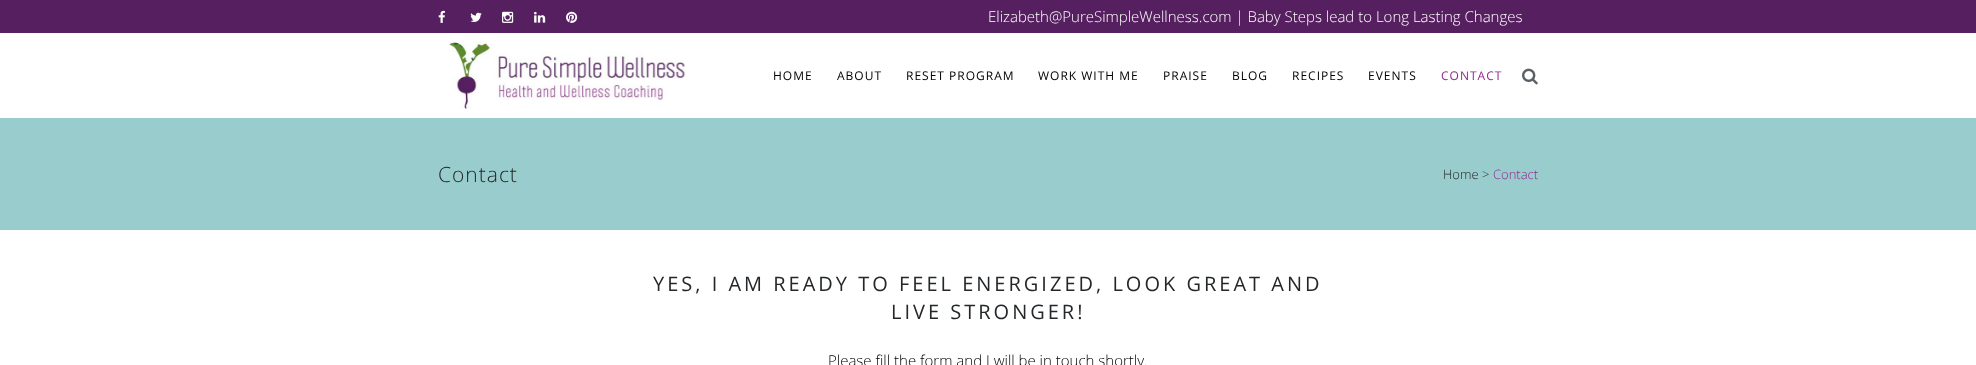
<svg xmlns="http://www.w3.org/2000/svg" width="1976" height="365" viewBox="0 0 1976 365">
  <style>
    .t1 { font: 300 15px Open Sans; fill: #fff; }
    .t2 { font: 12px Open Sans; letter-spacing: 1px; fill: #000; }
    .t3 { font: 12px Open Sans; letter-spacing: 1px; fill: #92278f; }
    .t4 { font: 300 21px Open Sans; letter-spacing: 1px; fill: #242729; }
    .t5 { font: 300 13px Open Sans; fill: #242729; }
    .t6 { font: 300 13px Open Sans; fill: #92278f; }
    .t7 { font: 20px Open Sans; letter-spacing: 3px; fill: #242729; }
    .t8 { font: 300 15px Open Sans; fill: #000; }
  </style>
  <rect width="100%" height="100%" fill="#fff"/>
  <rect x="0" y="0" width="1976" height="33" fill="#562060"/>
  <image x="438" y="10" width="7" height="13" href="images/1.png"/>
  <image x="470" y="12" width="12" height="10" href="images/2.png"/>
  <image x="502" y="11" width="12" height="12" href="images/3.png"/>
  <image x="534" y="11" width="12" height="12" href="images/4.png"/>
  <image x="566" y="11" width="12" height="12" href="images/5.png"/>
  <text x="988" y="22" class="t1">Elizabeth@PureSimpleWellness.com | Baby Steps lead to Long Lasting Changes</text>
  <image x="449" y="38" width="237" height="71" href="images/6.png"/>
  <text x="773" y="80" class="t2">HOME</text>
  <text x="837" y="80" class="t2">ABOUT</text>
  <text x="906" y="80" class="t2">RESET PROGRAM</text>
  <text x="1038" y="80" class="t2">WORK WITH ME</text>
  <text x="1163" y="80" class="t2">PRAISE</text>
  <text x="1232" y="80" class="t2">BLOG</text>
  <text x="1292" y="80" class="t2">RECIPES</text>
  <text x="1368" y="80" class="t2">EVENTS</text>
  <text x="1441" y="80" class="t3">CONTACT</text>
  <image x="1522" y="68" width="16" height="17" href="images/7.png"/>
  <rect x="0" y="118" width="1976" height="112" fill="#9cc"/>
  <text x="438" y="182" class="t4">Contact</text>
  <text x="1443" y="179" class="t5">Home &gt;</text>
  <text x="1493" y="179" class="t6">Contact</text>
  <text x="653" y="291" class="t7">YES, I AM READY TO FEEL ENERGIZED, LOOK GREAT AND</text>
  <text x="891" y="319" class="t7">LIVE STRONGER!</text>
  <text x="828" y="366" class="t8">Please fill the form and I will be in touch shortly.</text>
</svg>
